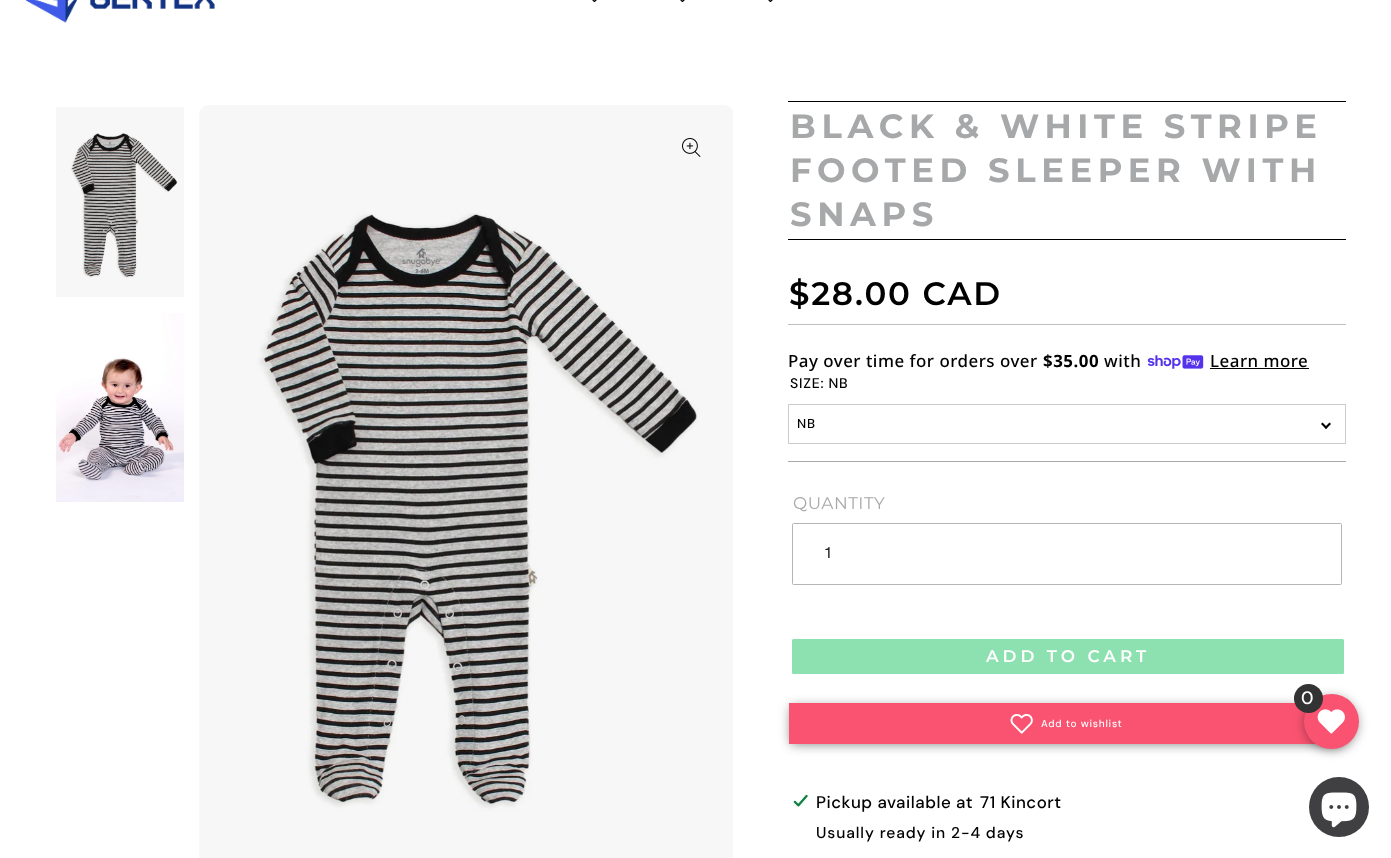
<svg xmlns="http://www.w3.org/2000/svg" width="1391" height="858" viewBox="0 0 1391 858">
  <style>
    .t1 { font: bold 33.75px Montserrat; letter-spacing: 5.6px; fill: #a7a8a9; }
    .t2 { font: 600 32.5px Montserrat; letter-spacing: 1.75px; fill: #000; }
    .t3 { font: 500 16.9px Noto Sans; letter-spacing: 0.5px; fill: #000; }
    .t4 { font: bold 16.9px Noto Sans; letter-spacing: 0.5px; fill: #000; }
    .t5 { font: 500 14px 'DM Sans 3'; letter-spacing: 0.75px; fill: #000; }
    .t6 { font: 500 13px 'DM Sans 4'; letter-spacing: 0.75px; fill: #000; }
    .t7 { font: 16.9px Montserrat; letter-spacing: 0.5px; fill: #a7a8a9; }
    .t8 { font: 15.6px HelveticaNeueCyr; fill: #262626; }
    .t9 { font: 600 16.9px Montserrat; letter-spacing: 3.9px; fill: #fff; }
    .t10 { font: 500 10px 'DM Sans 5'; letter-spacing: 0.75px; fill: #fff; }
    .t11 { font: 500 16.9px DM Sans; letter-spacing: 0.5px; fill: #000; }
    .t12 { font: 500 15.6px 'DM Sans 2'; letter-spacing: 0.9px; fill: #000; }
    .t13 { font: 500 18px 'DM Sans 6'; letter-spacing: 0.75px; fill: #fff; }
  </style>
  <rect width="100%" height="100%" fill="#fff"/>
  <image x="25" y="0" width="190" height="23" href="images/1.png"/>
  <image x="592" y="0" width="5" height="3" href="images/2.png"/>
  <image x="680" y="0" width="5" height="3" href="images/2.png"/>
  <image x="768" y="0" width="5" height="3" href="images/2.png"/>
  <image x="56" y="107" width="128" height="190" href="images/3.png"/>
  <image x="56" y="313" width="128" height="189" href="images/4.png"/>
  <image x="199" y="105" width="534" height="753" href="images/5.png"/>
  <image x="682" y="138" width="19" height="19" href="images/6.png"/>
  <rect x="788" y="101" width="558" height="1" fill="#000"/>
  <rect x="788" y="239" width="558" height="1" fill="#000"/>
  <text x="790" y="138" class="t1">BLACK &amp; WHITE STRIPE</text>
  <text x="790" y="182" class="t1">FOOTED SLEEPER WITH</text>
  <text x="790" y="226" class="t1">SNAPS</text>
  <rect x="788" y="324" width="558" height="1" fill="#bdbfbf"/>
  <text x="789" y="305" class="t2">$28.00 CAD</text>
  <text x="788" y="367" class="t3">Pay over time for orders over</text>
  <text x="1043" y="367" class="t4">$35.00</text>
  <text x="1104" y="367" class="t3">with</text>
  <image x="1147" y="355" width="57" height="14" href="images/7.png"/>
  <text x="1210" y="367" class="t3">Learn more</text>
  <rect x="1210" y="368" width="99" height="1" fill="#000"/>
  <text x="790" y="388" class="t5">SIZE: NB</text>
  <rect x="788.5" y="404.5" width="557" height="39" fill="none" stroke="#ccc"/>
  <text x="797" y="428" class="t6">NB</text>
  <path d="M1329.5 422.5L1331 424L1326 429L1324.5 427.5Z" fill="#000"/>
  <path d="M1322.5 422.5L1327.5 427.5L1326 429L1321 424Z" fill="#000"/>
  <rect x="788" y="461" width="558" height="1" fill="#a7a8a9"/>
  <text x="793" y="509" class="t7">QUANTITY</text>
  <rect x="792.5" y="523.5" width="549" height="61" rx="1" fill="none" stroke="#b4b5b6"/>
  <text x="824" y="558" class="t8">1</text>
  <rect x="792" y="639" width="552" height="35" rx="1.5" fill="#8de1b0"/>
  <text x="986" y="662" class="t9">ADD TO CART</text>
  <rect x="791" y="707" width="551" height="37" fill="#00000080" filter="blur(6px)"/>
  <rect x="789" y="703" width="527" height="41" fill="#fa5371"/>
  <image x="1010" y="714" width="23" height="20" href="images/8.png"/>
  <text x="1041" y="727" class="t10">Add to wishlist</text>
  <image x="793" y="794" width="16" height="14" href="images/9.png"/>
  <text x="816" y="808" class="t11">Pickup available at</text>
  <text x="980" y="808" class="t11">71 Kincort</text>
  <text x="816" y="838" class="t12">Usually ready in 2-4 days</text>
  <rect x="1306" y="698" width="51" height="51" rx="25.5" fill="#00000080" filter="blur(6px)"/>
  <circle cx="1331.5" cy="721.5" r="27.5" fill="#fa5371"/>
  <image x="1317" y="709" width="28" height="25" href="images/10.png"/>
  <circle cx="1308.5" cy="698.5" r="14.5" fill="#333"/>
  <text x="1301" y="704" class="t13">0</text>
  <circle cx="1339" cy="807" r="30" fill="#404042"/>
  <image x="1321" y="792" width="36" height="36" href="images/11.png"/>
</svg>
